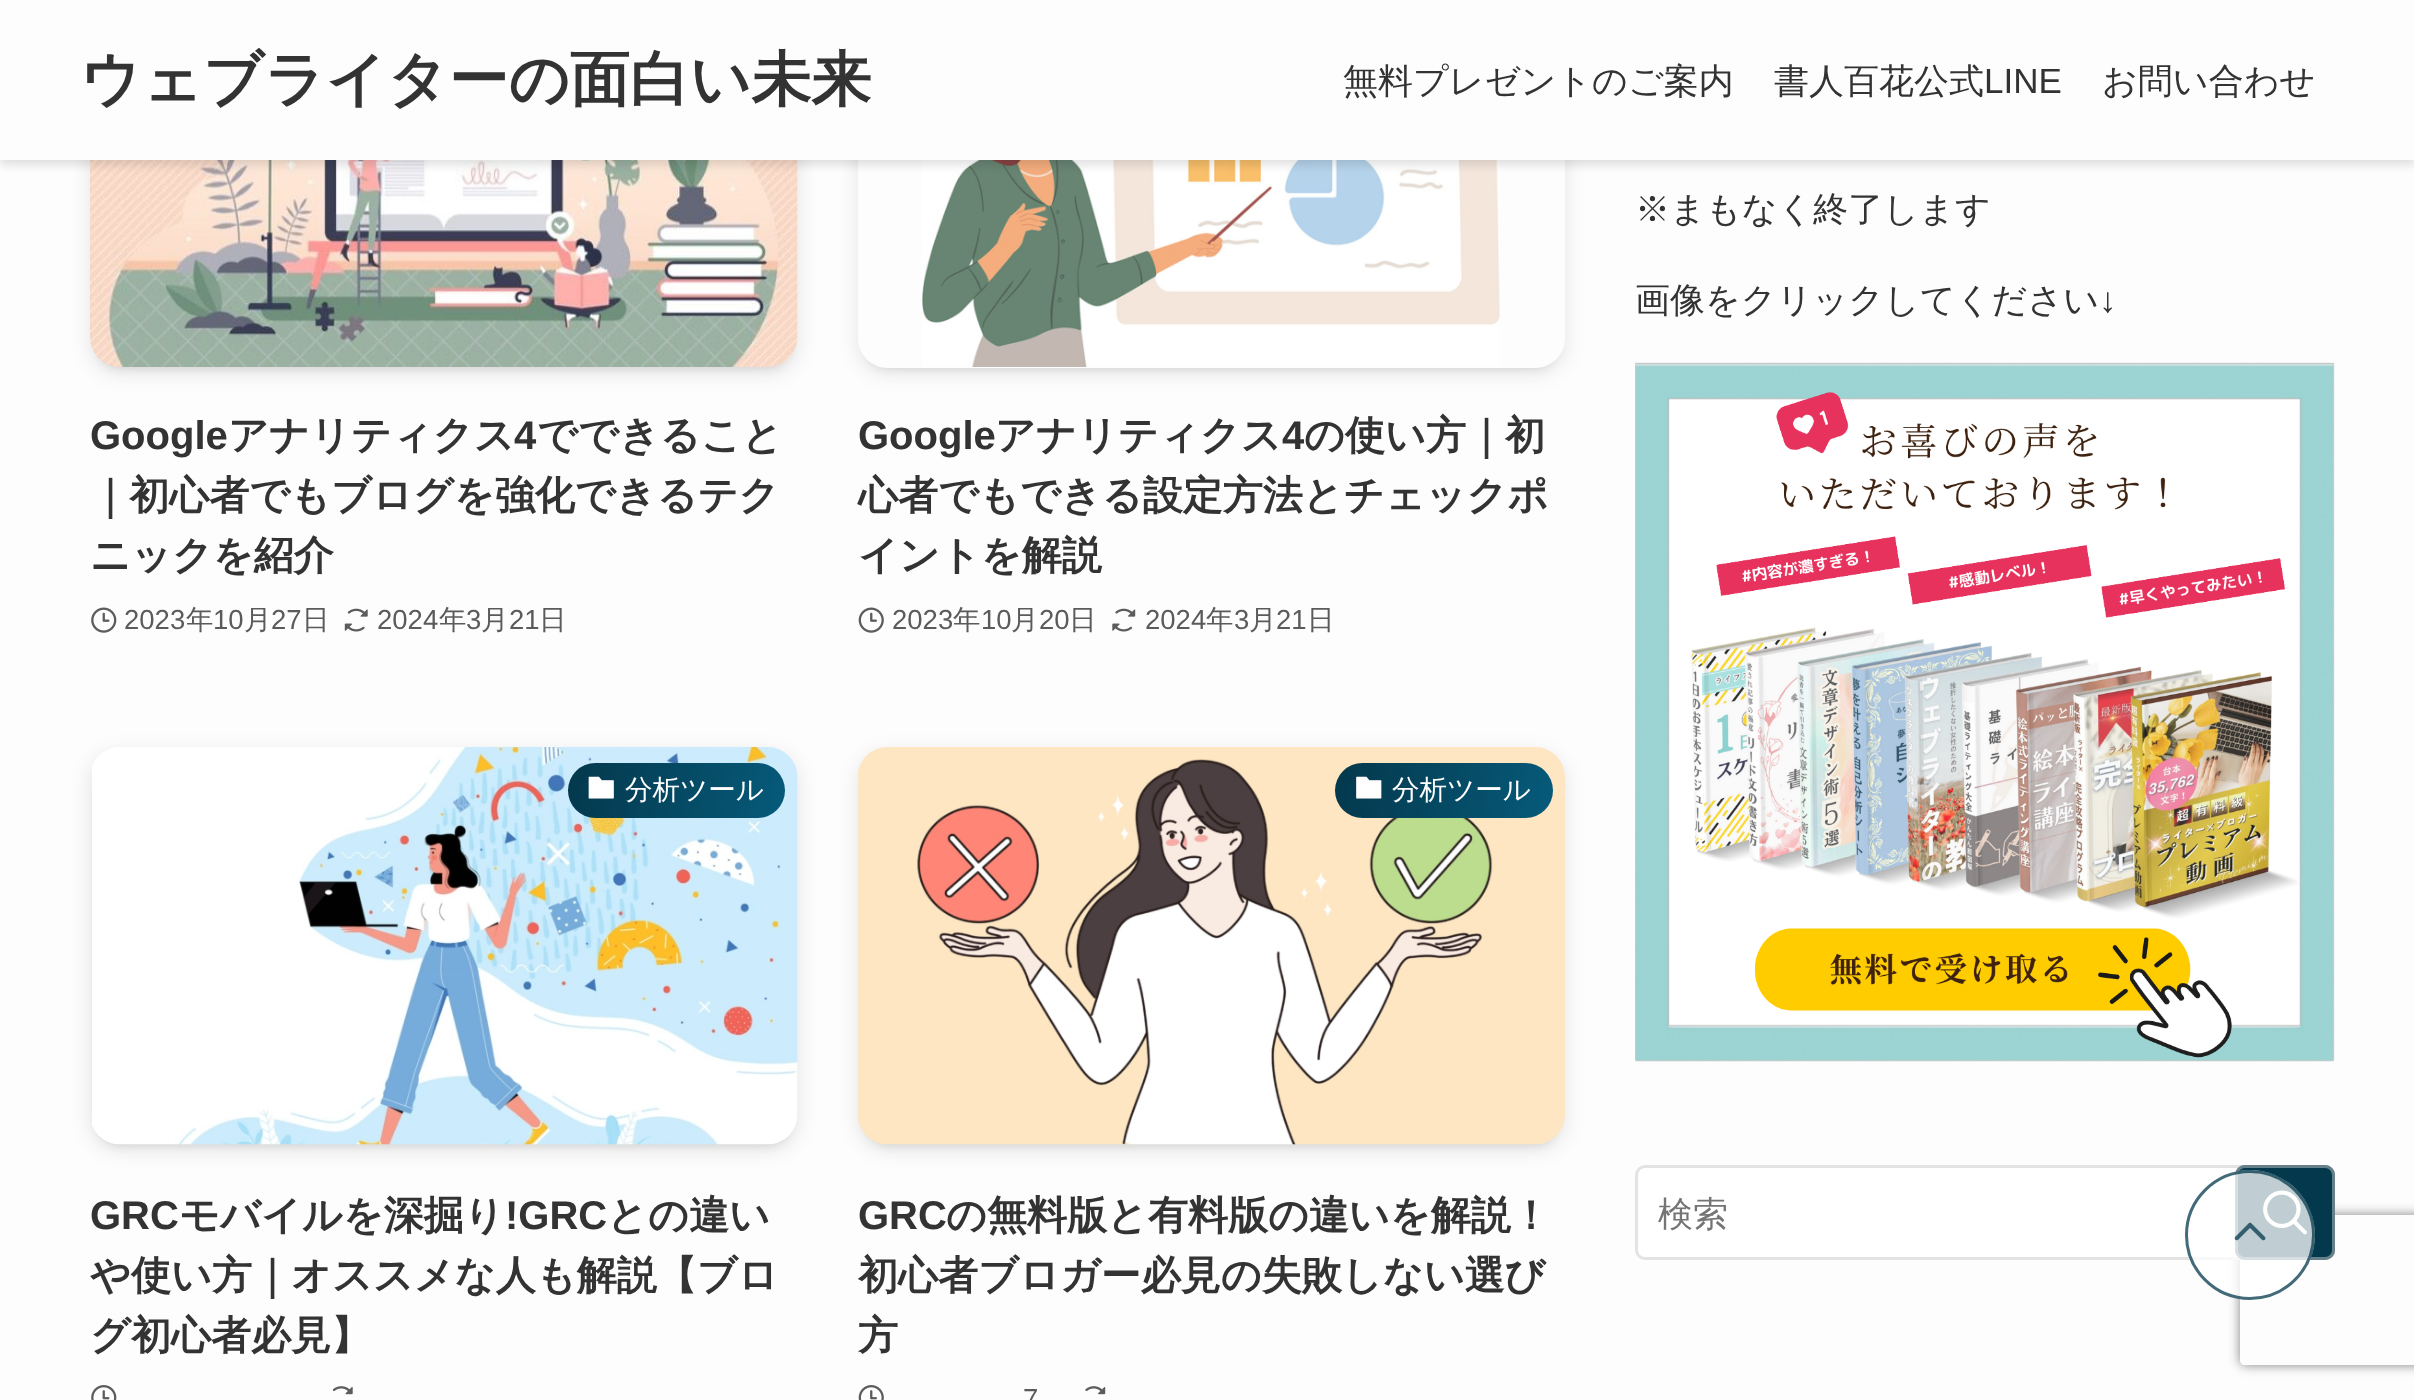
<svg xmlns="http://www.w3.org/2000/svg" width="2414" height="1400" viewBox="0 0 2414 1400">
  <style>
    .t1 { font: bold 60px WenQuanYi Zen Hei; fill: #333; }
    .t2 { font: 500 35px WenQuanYi Zen Hei; fill: #333; }
    .t3 { font: 35px Liberation Sans; fill: #333; }
    .t4 { font: bold 40px Liberation Sans; fill: #333; }
    .t5 { font: bold 40px WenQuanYi Zen Hei; fill: #333; }
    .t6 { font: 27.5px Liberation Sans; fill: #5b5b5b; }
    .t7 { font: 500 27.5px WenQuanYi Zen Hei; fill: #5b5b5b; }
    .t8 { font: 500 27.5px WenQuanYi Zen Hei; fill: #fff; }
    .t9 { font: 500 35px WenQuanYi Zen Hei; fill: #757575; }
  </style>
  <defs>
    <clipPath id="clip1"><path d="M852 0H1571V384H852ZM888-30H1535C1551.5-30 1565-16.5 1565 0V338C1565 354.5 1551.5 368 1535 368H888C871.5 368 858 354.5 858 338V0C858-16.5 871.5-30 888-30Z" clip-rule="evenodd"/></clipPath>
    <clipPath id="clip2"><path d="M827 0H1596V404H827ZM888-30H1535C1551.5-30 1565-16.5 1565 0V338C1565 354.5 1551.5 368 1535 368H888C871.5 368 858 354.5 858 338V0C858-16.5 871.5-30 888-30Z" clip-rule="evenodd"/></clipPath>
    <linearGradient id="g1" gradientUnits="userSpaceOnUse" x1="566" y1="771" x2="786" y2="809"><stop offset="0" stop-color="#04384c"/><stop offset="1" stop-color="#065a7a"/></linearGradient>
    <linearGradient id="g2" gradientUnits="userSpaceOnUse" x1="1334" y1="771" x2="1554" y2="809"><stop offset="0" stop-color="#04384c"/><stop offset="1" stop-color="#065a7a"/></linearGradient>
    <clipPath id="clip3"><path d="M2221 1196H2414V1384H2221ZM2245 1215H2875C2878 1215 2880 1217 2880 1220V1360C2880 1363 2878 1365 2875 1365H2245C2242 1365 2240 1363 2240 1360V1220C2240 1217 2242 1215 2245 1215Z" clip-rule="evenodd"/></clipPath>
  </defs>
  <rect width="100%" height="100%" fill="#fdfdfd"/>
  <rect x="100" y="-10" width="688" height="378" rx="20" fill="#0000001a" filter="blur(5px)"/>
  <rect x="90" y="-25" width="708" height="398" rx="30" fill="#0000001a" filter="blur(10px)"/>
  <image x="90" y="160" width="708" height="207" href="images/1.png"/>
  <g clip-path="url(#clip1)">
    <rect x="868" y="-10" width="687" height="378" rx="20" fill="#0000001a" filter="blur(5px)"/>
  </g>
  <g clip-path="url(#clip2)">
    <rect x="858" y="-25" width="707" height="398" rx="30" fill="#0000001a" filter="blur(10px)"/>
  </g>
  <image x="922" y="160" width="578" height="207" href="images/4.png"/>
  <rect x="0" y="5" width="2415" height="160" fill="#0000001f" filter="blur(5px)"/>
  <rect x="0" y="0" width="2414" height="160" fill="#fdfdfd"/>
  <text x="80" y="100" class="t1">ウェブライターの面白い未来</text>
  <text x="1343" y="93" class="t2">無料プレゼントのご案内</text>
  <text x="1774" y="93" class="t2">書人百花公式</text>
  <text x="1984" y="93" class="t3">LINE</text>
  <text x="2102" y="93" class="t2">お問い合わせ</text>
  <text x="90" y="449" class="t4">Google</text>
  <text x="228" y="449" class="t5">アナリティクス</text>
  <text x="514" y="449" class="t4">4</text>
  <text x="537" y="449" class="t5">でできること</text>
  <text x="90" y="509" class="t5">｜初心者でもブログを強化できるテク</text>
  <text x="90" y="569" class="t5">ニックを紹介</text>
  <image x="91" y="607" width="26" height="26" href="images/2.png"/>
  <text x="124" y="629" class="t6">2023</text>
  <text x="186" y="629" class="t7">年</text>
  <text x="213" y="629" class="t6">10</text>
  <text x="244" y="629" class="t7">月</text>
  <text x="271" y="629" class="t6">27</text>
  <text x="302" y="629" class="t7">日</text>
  <image x="344" y="608" width="24" height="24" href="images/3.png"/>
  <text x="377" y="629" class="t6">2024</text>
  <text x="439" y="629" class="t7">年</text>
  <text x="466" y="629" class="t6">3</text>
  <text x="481" y="629" class="t7">月</text>
  <text x="509" y="629" class="t6">21</text>
  <text x="539" y="629" class="t7">日</text>
  <text x="858" y="449" class="t4">Google</text>
  <text x="995" y="449" class="t5">アナリティクス</text>
  <text x="1282" y="449" class="t4">4</text>
  <text x="1304" y="449" class="t5">の使い方｜初</text>
  <text x="858" y="509" class="t5">心者でもできる設定方法とチェックポ</text>
  <text x="858" y="569" class="t5">イントを解説</text>
  <image x="858" y="607" width="26" height="26" href="images/5.png"/>
  <text x="892" y="629" class="t6">2023</text>
  <text x="953" y="629" class="t7">年</text>
  <text x="981" y="629" class="t6">10</text>
  <text x="1011" y="629" class="t7">月</text>
  <text x="1039" y="629" class="t6">20</text>
  <text x="1069" y="629" class="t7">日</text>
  <image x="1112" y="608" width="24" height="24" href="images/6.png"/>
  <text x="1145" y="629" class="t6">2024</text>
  <text x="1206" y="629" class="t7">年</text>
  <text x="1234" y="629" class="t6">3</text>
  <text x="1249" y="629" class="t7">月</text>
  <text x="1276" y="629" class="t6">21</text>
  <text x="1307" y="629" class="t7">日</text>
  <rect x="100" y="768" width="688" height="377" rx="20" fill="#0000001a" filter="blur(5px)"/>
  <rect x="90" y="753" width="708" height="397" rx="30" fill="#0000001a" filter="blur(10px)"/>
  <image x="92" y="747" width="706" height="398" href="images/7.png"/>
  <rect x="568" y="763" width="217" height="55" rx="27.5" fill="url(#g1)"/>
  <image x="588" y="776" width="26" height="23" href="images/8.png"/>
  <text x="625" y="799" class="t8">分析ツール</text>
  <text x="90" y="1229" class="t4">GRC</text>
  <text x="179" y="1229" class="t5">モバイルを深掘り</text>
  <text x="505" y="1229" class="t4">!GRC</text>
  <text x="607" y="1229" class="t5">との違い</text>
  <text x="90" y="1289" class="t5">や使い方｜オススメな人も解説【ブロ</text>
  <text x="90" y="1349" class="t5">グ初心者必見】</text>
  <image x="91" y="1385" width="26" height="15" href="images/9.png"/>
  <image x="332" y="1386" width="21" height="9" href="images/10.png"/>
  <rect x="868" y="768" width="687" height="377" rx="20" fill="#0000001a" filter="blur(5px)"/>
  <rect x="858" y="753" width="707" height="397" rx="30" fill="#0000001a" filter="blur(10px)"/>
  <image x="857" y="747" width="708" height="398" href="images/11.png"/>
  <rect x="1335" y="763" width="218" height="55" rx="27.5" fill="url(#g2)"/>
  <image x="1356" y="776" width="26" height="23" href="images/12.png"/>
  <text x="1392" y="799" class="t8">分析ツール</text>
  <text x="858" y="1229" class="t4">GRC</text>
  <text x="946" y="1229" class="t5">の無料版と有料版の違いを解説！</text>
  <text x="858" y="1289" class="t5">初心者ブロガー必見の失敗しない選び</text>
  <text x="858" y="1349" class="t5">方</text>
  <image x="858" y="1385" width="26" height="15" href="images/13.png"/>
  <text x="1023" y="1408" class="t6">7</text>
  <image x="1085" y="1386" width="21" height="9" href="images/14.png"/>
  <text x="1635" y="221" class="t2">※まもなく終了します</text>
  <text x="1635" y="312" class="t2">画像をクリックしてください</text>
  <text x="2099" y="312" class="t3">↓</text>
  <image x="1635" y="362" width="700" height="700" href="images/15.png"/>
  <g clip-path="url(#clip3)">
    <rect x="2240" y="1215" width="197" height="150" rx="5" fill="#808080" filter="blur(6px)"/>
  </g>
  <rect x="1636.5" y="1166.5" width="697" height="92" rx="8.5" fill="#fff" stroke="#e3e3e3" stroke-width="3"/>
  <text x="1658" y="1226" class="t9">検索</text>
  <rect x="2235" y="1165" width="100" height="95" rx="10" fill="#04384c"/>
  <rect x="2236.5" y="1166.5" width="97" height="92" rx="8.5" fill="none" stroke="#c7c7c780" stroke-width="3"/>
  <image x="2263" y="1190" width="44" height="45" href="images/16.png"/>
  <circle cx="2250" cy="1235" r="65" fill="#ffffffbf"/>
  <circle cx="2250" cy="1235" r="63.5" fill="none" stroke="#04384cbf" stroke-width="3"/>
  <image x="2234" y="1222" width="32" height="19" href="images/17.png"/>
</svg>
